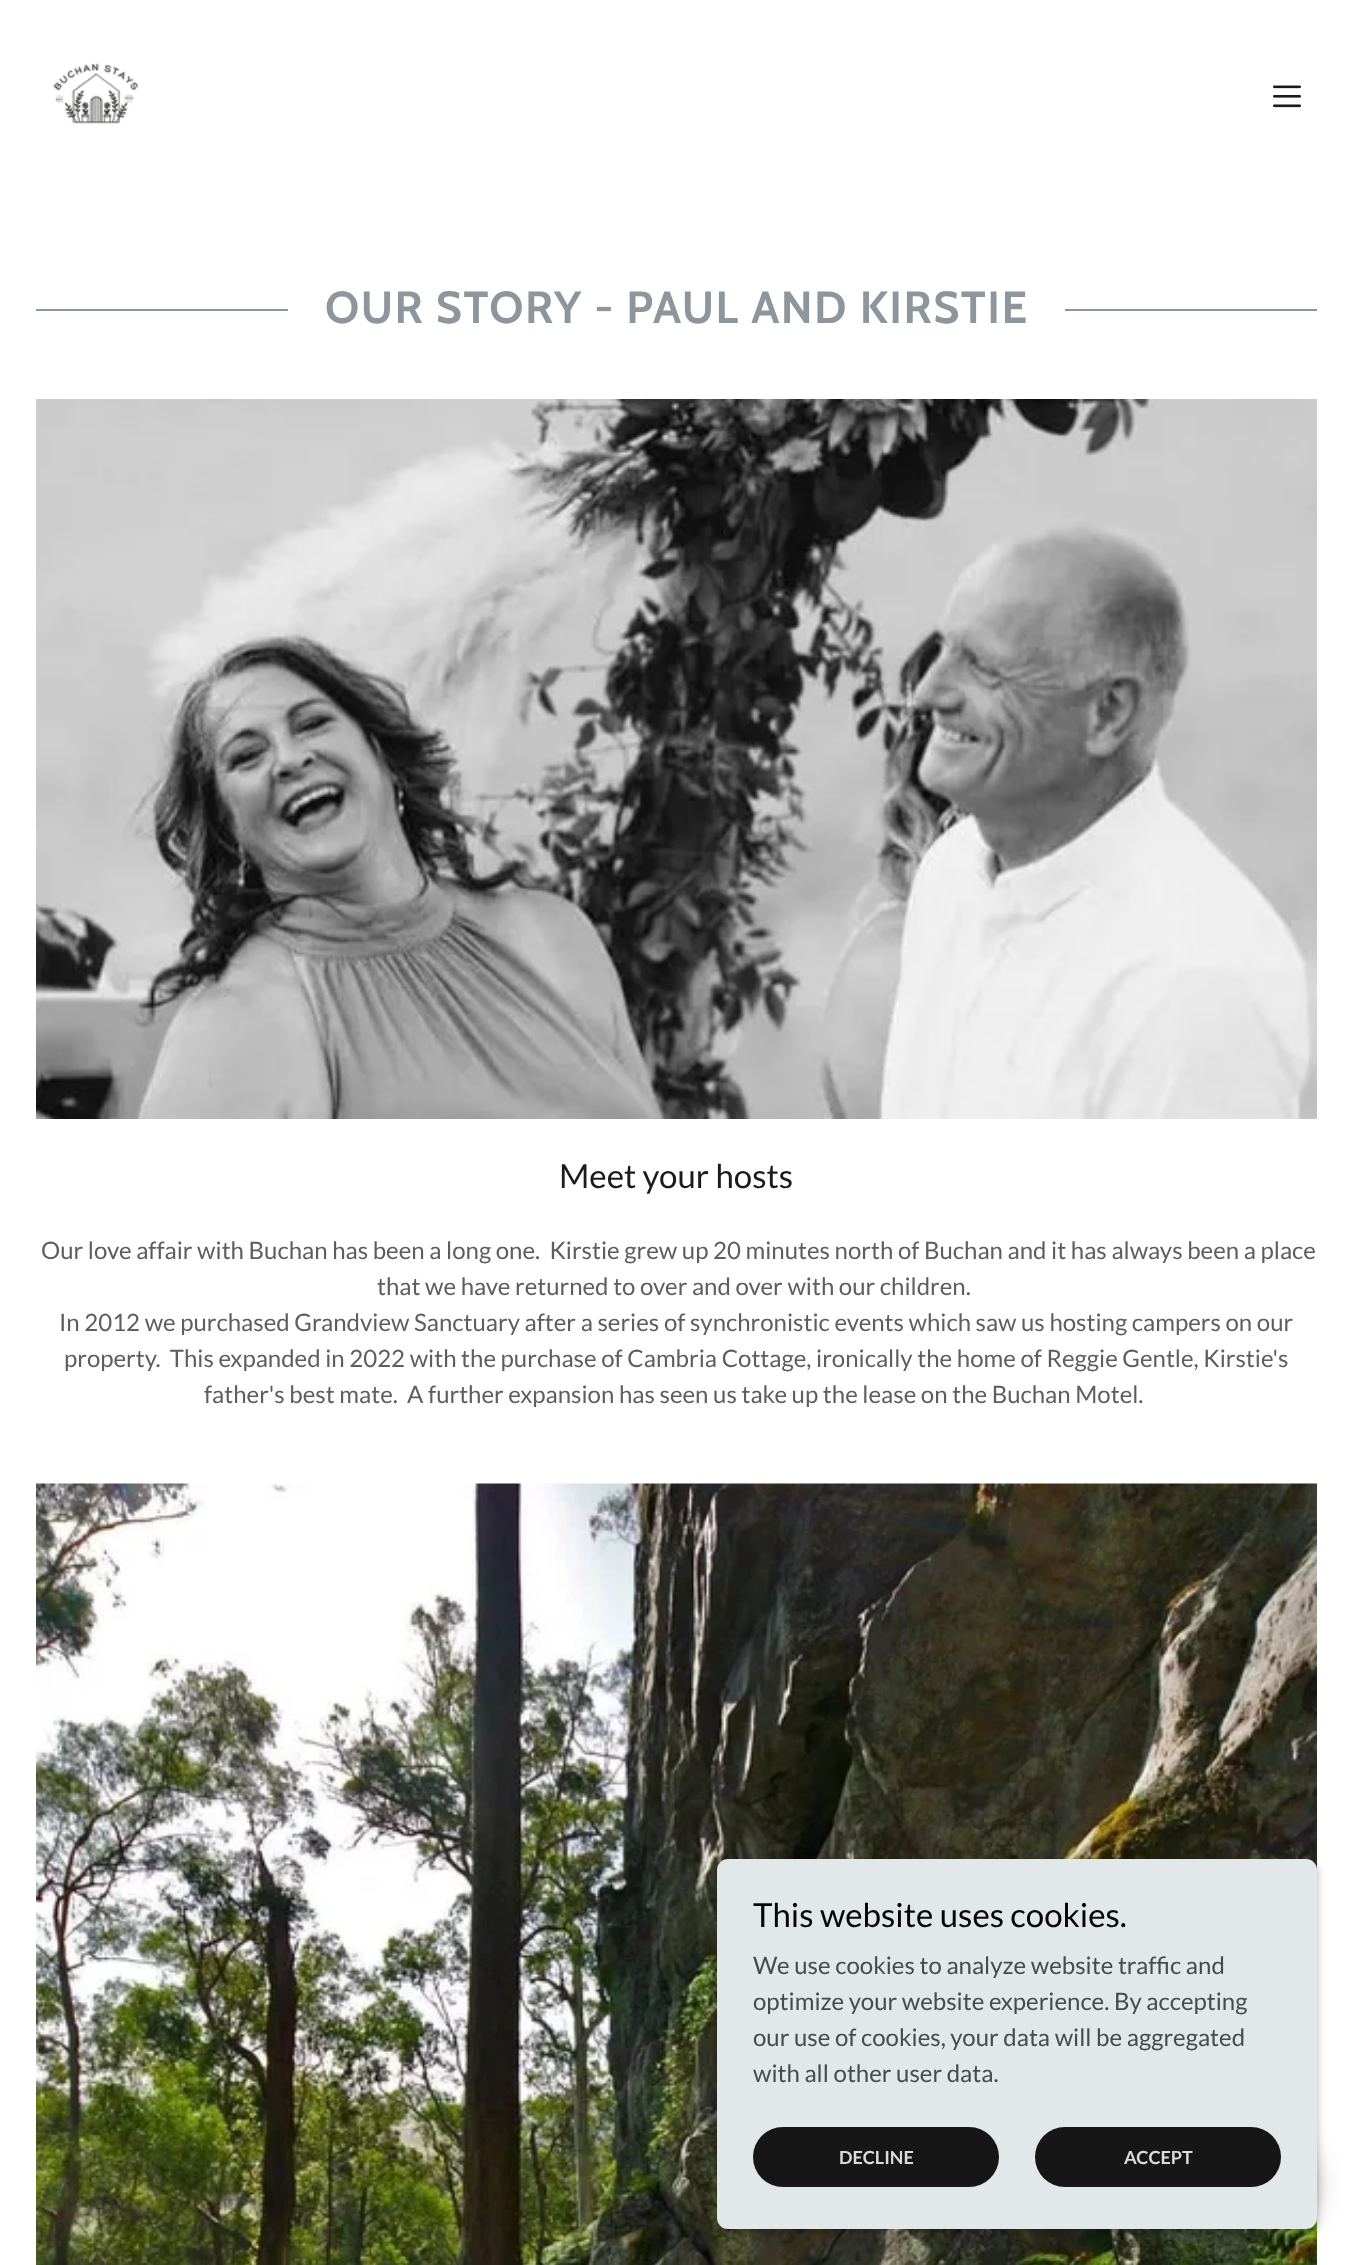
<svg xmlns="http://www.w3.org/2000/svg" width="1352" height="2265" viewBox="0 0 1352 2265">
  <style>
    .t1 { font: bold 45px Cabin; letter-spacing: 1.5px; fill: #8c969c; }
    .t2 { font: 33px Lato; fill: #1b1b1b; }
    .t3 { font: 24px Lato; fill: #5e5e5e; }
    .t4 { font: 33px Lato; fill: #050505; }
    .t5 { font: 24px Lato; fill: #484a4b; }
    .t6 { font: bold 18px Lato; fill: #dbdbdb; }
  </style>
  <rect width="100%" height="100%" fill="#fff"/>
  <image x="53" y="63" width="86" height="61" href="images/1.png"/>
  <image x="1273" y="85" width="28" height="23" href="images/2.png"/>
  <rect x="36" y="309" width="252" height="2" fill="#8c969c"/>
  <text x="325" y="323" class="t1">OUR STORY - PAUL AND KIRSTIE</text>
  <rect x="1065" y="309" width="252" height="2" fill="#8c969c"/>
  <image x="36" y="399" width="1281" height="720" href="images/3.png"/>
  <text x="559" y="1188" class="t2">Meet your hosts</text>
  <text x="41" y="1259" class="t3" xml:space="preserve">Our love affair with Buchan has been a long one.  Kirstie grew up 20 minutes north of Buchan and it has always been a place</text>
  <text x="377" y="1295" class="t3">that we have returned to over and over with our children.</text>
  <text x="59" y="1331" class="t3">In 2012 we purchased Grandview Sanctuary after a series of synchronistic events which saw us hosting campers on our</text>
  <text x="64" y="1367" class="t3" xml:space="preserve">property.  This expanded in 2022 with the purchase of Cambria Cottage, ironically the home of Reggie Gentle, Kirstie's</text>
  <text x="204" y="1403" class="t3" xml:space="preserve">father's best mate.  A further expansion has seen us take up the lease on the Buchan Motel.</text>
  <image x="36" y="1483" width="1281" height="782" href="images/4.png"/>
  <rect x="717" y="1862" width="600" height="370" rx="11" fill="#0000004d" filter="blur(4.5px)"/>
  <rect x="1220" y="2136" width="97" height="98" rx="48.5" fill="#00000040" filter="blur(13.5px)"/>
  <rect x="717" y="1859" width="600" height="370" rx="11" fill="#e2e7ea"/>
  <text x="753" y="1927" class="t4">This website uses cookies.</text>
  <text x="753" y="1974" class="t5">We use cookies to analyze website traffic and</text>
  <text x="753" y="2010" class="t5">optimize your website experience. By accepting</text>
  <text x="753" y="2046" class="t5">our use of cookies, your data will be aggregated</text>
  <text x="753" y="2082" class="t5">with all other user data.</text>
  <rect x="753" y="2127" width="246" height="60" rx="30" fill="#161616"/>
  <text x="839" y="2164" class="t6">DECLINE</text>
  <rect x="1035" y="2127" width="246" height="60" rx="30" fill="#161616"/>
  <text x="1124" y="2164" class="t6">ACCEPT</text>
</svg>
